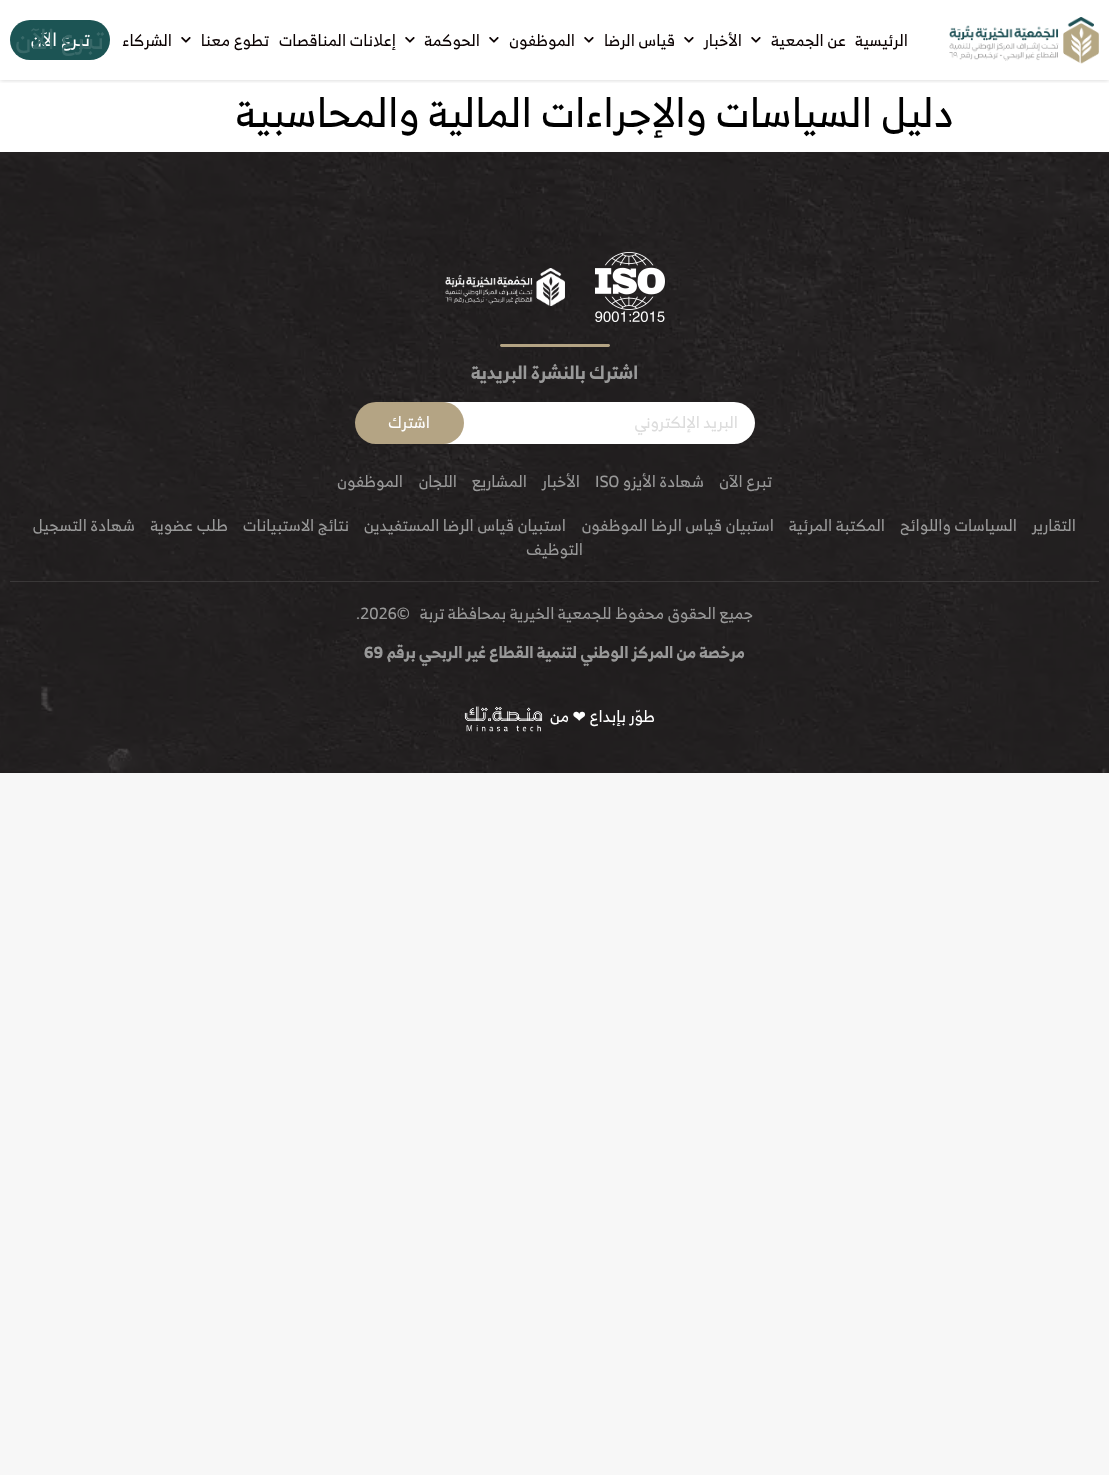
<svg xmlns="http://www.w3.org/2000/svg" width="1109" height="1475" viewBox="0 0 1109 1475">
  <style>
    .t1 { font: 16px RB; direction: rtl; fill: #0a0101; }
    .t2 { font: 18px RB; direction: rtl; fill: #fff; }
    .t3 { font: 27px RB; direction: rtl; fill: #386969; }
    .t4 { font: 40px RB; direction: rtl; fill: #000; }
    .t5 { font: bold 18px RB; direction: rtl; fill: #999; }
    .t6 { font: 16px RB; direction: rtl; fill: #dcdcdc; }
    .t7 { font: 16px RB; direction: rtl; fill: #fff; }
    .t8 { font: 16px RB; direction: rtl; fill: #999; }
    .t9 { font: 16px RB; fill: #999; }
    .t10 { font: bold 16px RB; direction: rtl; fill: #999; }
    .t11 { font: bold 16px RB; fill: #999; }
    .t12 { font: 16px DejaVu Sans; direction: rtl; fill: #fff; }
  </style>
  <defs>
    <clipPath id="clip1"><rect x="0" y="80" width="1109" height="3"/></clipPath>
  </defs>
  <rect width="100%" height="100%" fill="#f7f7f7"/>
  <rect x="0" y="0" width="1109" height="152" fill="#fff"/>
  <g clip-path="url(#clip1)">
    <rect x="0" y="0" width="1109" height="80" fill="#0000002e" filter="blur(2.5px)"/>
  </g>
  <image x="949" y="17" width="150" height="47" href="images/1.png"/>
  <text x="908" y="46" class="t1">الرئيسية</text>
  <text x="846" y="46" class="t1">عن الجمعية</text>
  <image x="751" y="37" width="10" height="6" href="images/2.png"/>
  <text x="742" y="46" class="t1">الأخبار</text>
  <image x="684" y="37" width="10" height="6" href="images/2.png"/>
  <text x="675" y="46" class="t1">قياس الرضا</text>
  <image x="584" y="37" width="10" height="6" href="images/2.png"/>
  <text x="575" y="46" class="t1">الموظفون</text>
  <image x="489" y="37" width="10" height="6" href="images/2.png"/>
  <text x="480" y="46" class="t1">الحوكمة</text>
  <image x="405" y="37" width="10" height="6" href="images/2.png"/>
  <text x="396" y="46" class="t1">إعلانات المناقصات</text>
  <text x="269" y="46" class="t1">تطوع معنا</text>
  <image x="181" y="37" width="10" height="6" href="images/2.png"/>
  <text x="172" y="46" class="t1">الشركاء</text>
  <rect x="10" y="20" width="100" height="40" rx="20" fill="#1c5454"/>
  <text x="90" y="46" class="t2">تبرع الآن</text>
  <text x="104" y="49" class="t3">تبرع الآن</text>
  <text x="954" y="127" class="t4">دليل السياسات والإجراءات المالية والمحاسبية</text>
  <image x="0" y="152" width="1109" height="621" href="images/3.png"/>
  <image x="595" y="252" width="70" height="70" href="images/4.png"/>
  <image x="445" y="268" width="120" height="38" href="images/5.png"/>
  <path d="M608.5 345.5H501.5" fill="none" stroke="#b4a484" stroke-width="2.9" stroke-linecap="round"/>
  <text x="638" y="379" class="t5">اشترك بالنشرة البريدية</text>
  <rect x="426" y="402" width="329" height="42" rx="21" fill="#fff"/>
  <text x="738" y="428" class="t6">البريد الإلكتروني</text>
  <rect x="355" y="402" width="109" height="42" rx="21" fill="#b4a484"/>
  <text x="430" y="428" class="t7">اشترك</text>
  <text x="772" y="487" class="t8">تبرع الآن</text>
  <text x="704" y="487" class="t8">شهادة الأيزو</text>
  <text x="595" y="487" class="t9">ISO</text>
  <text x="580" y="487" class="t8">الأخبار</text>
  <text x="527" y="487" class="t8">المشاريع</text>
  <text x="457" y="487" class="t8">اللجان</text>
  <text x="403" y="487" class="t8">الموظفون</text>
  <text x="1076" y="531" class="t8">التقارير</text>
  <text x="1017" y="531" class="t8">السياسات واللوائح</text>
  <text x="885" y="531" class="t8">المكتبة المرئية</text>
  <text x="774" y="531" class="t8">استبيان قياس الرضا الموظفون</text>
  <text x="566" y="531" class="t8">استبيان قياس الرضا المستفيدين</text>
  <text x="349" y="531" class="t8">نتائج الاستبيانات</text>
  <text x="228" y="531" class="t8">طلب عضوية</text>
  <text x="135" y="531" class="t8">شهادة التسجيل</text>
  <text x="583" y="555" class="t8">التوظيف</text>
  <rect x="10" y="581" width="1089" height="1" fill="#99999933"/>
  <text x="753" y="619" class="t8">جميع الحقوق محفوظ للجمعية الخيرية بمحافظة تربة</text>
  <text x="356" y="619" class="t9">.2026©</text>
  <text x="745" y="658" class="t10">مرخصة من المركز الوطني لتنمية القطاع غير الربحي برقم</text>
  <text x="364" y="658" class="t11">69</text>
  <text x="655" y="722" class="t7">طوّر بإبداع</text>
  <text x="586" y="722" class="t12">❤</text>
  <text x="569" y="722" class="t7">من</text>
  <image x="464" y="706" width="79" height="26" href="images/6.png"/>
</svg>
